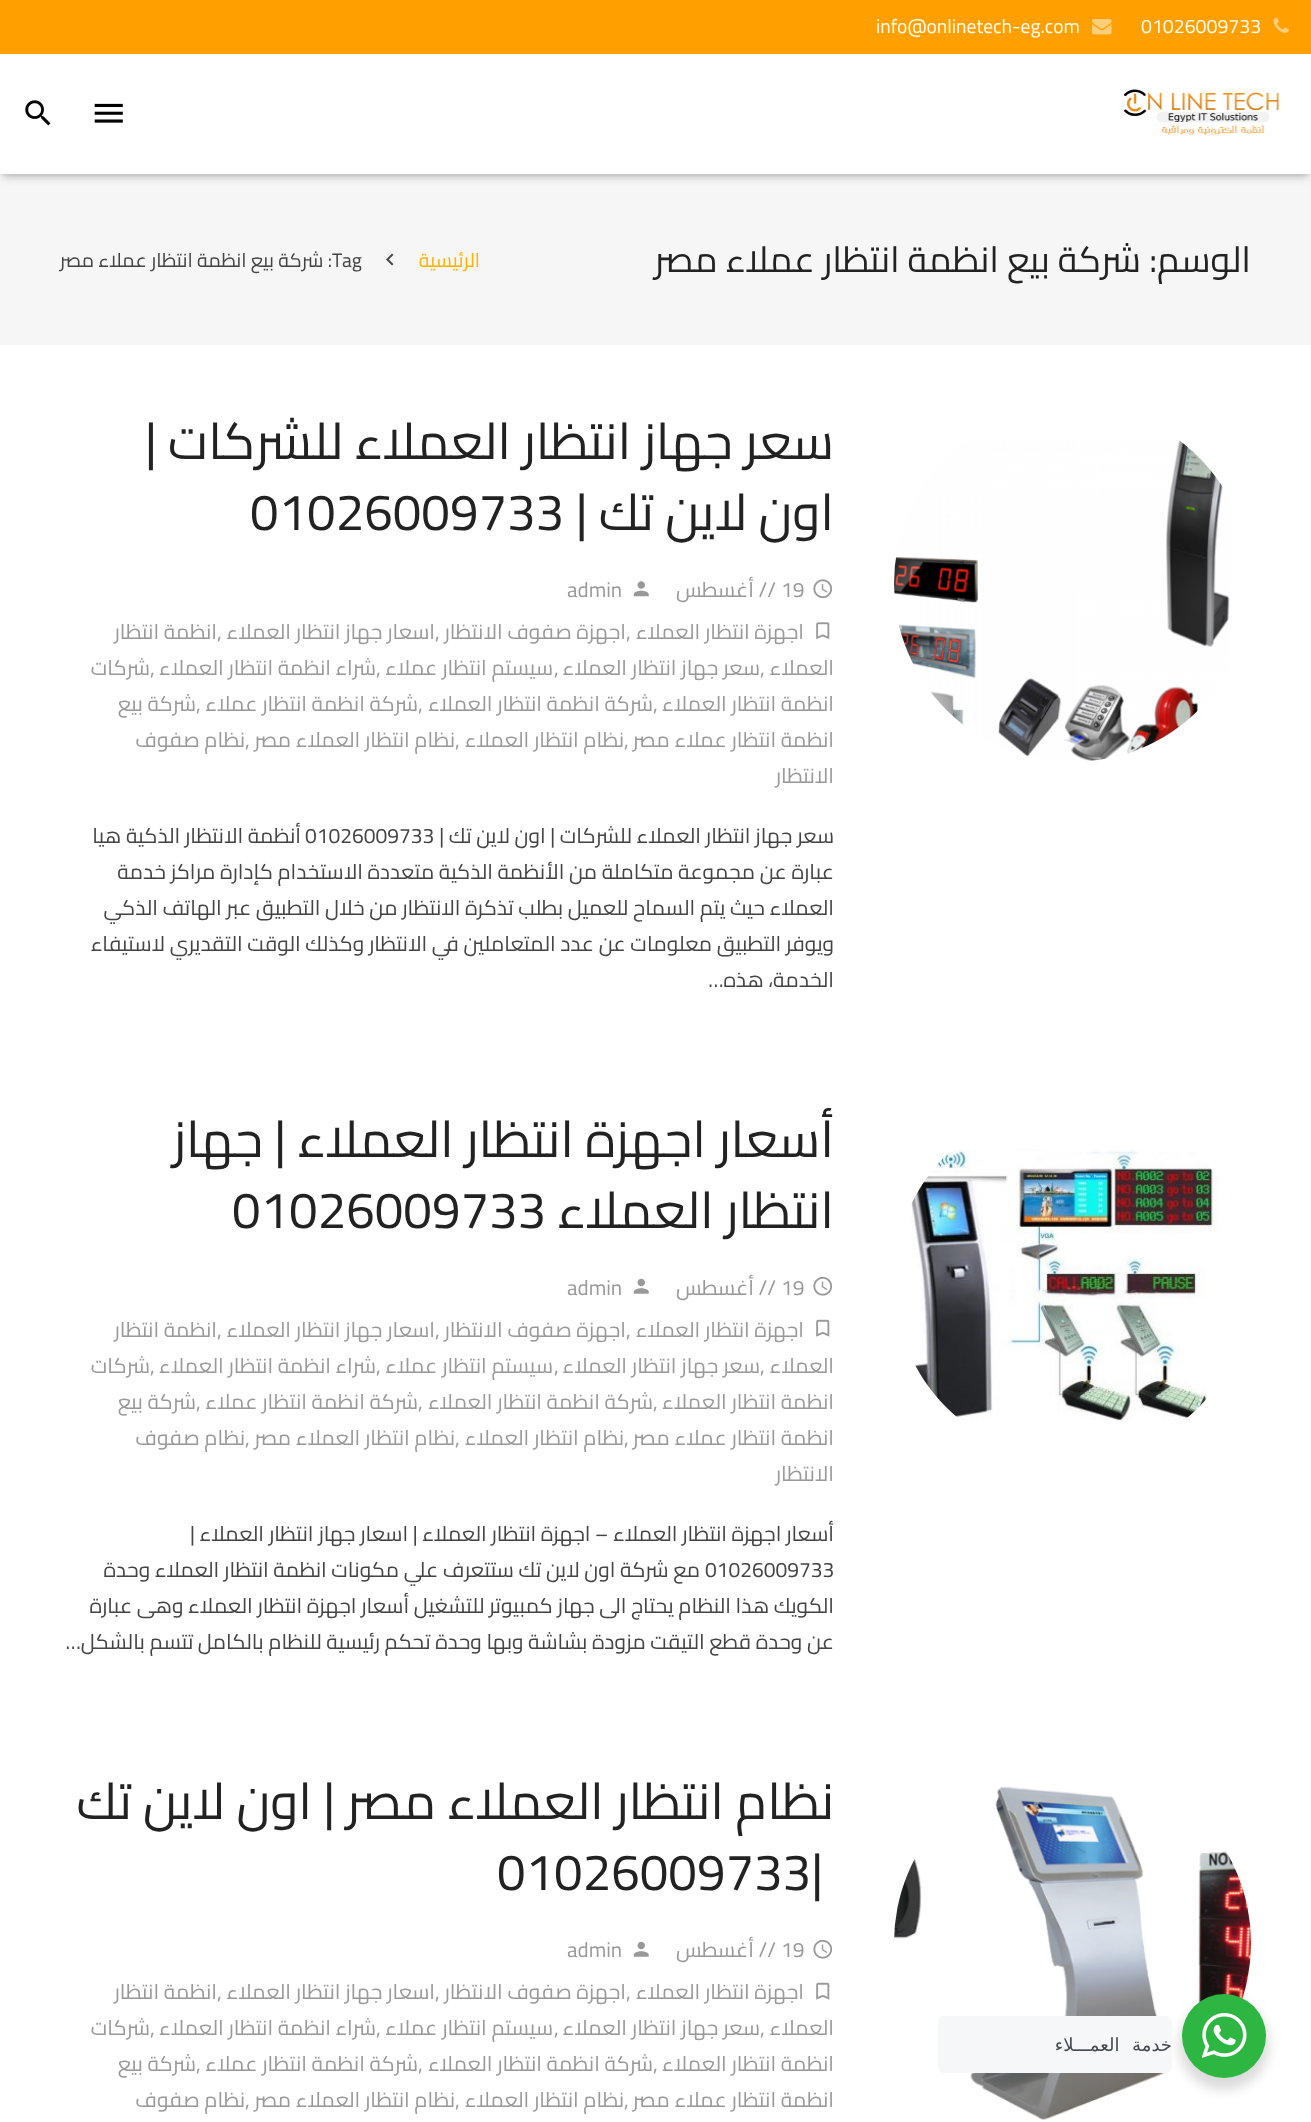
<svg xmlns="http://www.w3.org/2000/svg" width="1311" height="2122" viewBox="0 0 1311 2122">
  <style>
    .t1 { font: 19.5px Cairo; fill: #fffcf5; }
    .t2 { font: 36px Cairo; direction: rtl; fill: #222; }
    .t3 { font: 19.5px Cairo; direction: rtl; fill: #ffb300; }
    .t4 { font: 19.5px Cairo; fill: #444; }
    .t5 { font: 19.5px Cairo; direction: rtl; fill: #444; }
    .t6 { font: 51px Cairo; direction: rtl; fill: #222; }
    .t7 { font: 51px Cairo; fill: #222; }
    .t8 { font: 21px Cairo; fill: #999; }
    .t9 { font: 21px Cairo; direction: rtl; fill: #999; }
    .t10 { font: 21px Cairo; direction: rtl; fill: #444; }
    .t11 { font: 21px Cairo; fill: #444; }
    .t12 { font: 18px DejaVu Sans; letter-spacing: -0.5px; direction: rtl; fill: #43474e; }
  </style>
  <rect width="100%" height="100%" fill="#fff"/>
  <rect x="0" y="0" width="1311" height="54" fill="#ffa000"/>
  <image x="1273" y="17" width="16" height="16" href="images/1.png"/>
  <text x="1141" y="33" class="t1">01026009733</text>
  <image x="1092" y="19" width="20" height="16" href="images/2.png"/>
  <text x="876" y="33" class="t1">info@onlinetech-eg.com</text>
  <rect x="0" y="174" width="1311" height="171" fill="#f6f6f6"/>
  <rect x="2" y="59" width="1308" height="117" fill="#0000000d" filter="blur(1px)"/>
  <rect x="3" y="63" width="1305" height="114" fill="#00000038" filter="blur(4px)"/>
  <rect x="0" y="56" width="1311" height="118" fill="#fff"/>
  <image x="1124" y="89" width="155" height="46" href="images/3.png"/>
  <image x="94" y="103" width="29" height="20" href="images/4.png"/>
  <image x="25" y="100" width="26" height="26" href="images/5.png"/>
  <text x="1251" y="272" class="t2">الوسم:</text>
  <text x="1141" y="272" class="t2">شركة بيع انظمة انتظار عملاء مصر</text>
  <text x="480" y="267" class="t3">الرئيسية</text>
  <image x="386" y="253" width="8" height="13" href="images/6.png"/>
  <text x="332" y="267" class="t4">Tag</text>
  <text x="332" y="267" class="t5">: شركة بيع انظمة انتظار عملاء مصر</text>
  <image x="894" y="440" width="336" height="321" href="images/7.png"/>
  <text x="834" y="459" class="t6">سعر جهاز انتظار العملاء للشركات |</text>
  <text x="834" y="530" class="t6">اون لاين تك |</text>
  <text x="250" y="530" class="t7">01026009733</text>
  <image x="813" y="579" width="20" height="20" href="images/8.png"/>
  <text x="781" y="597" class="t8">19</text>
  <text x="776" y="597" class="t9">// أغسطس</text>
  <image x="633" y="581" width="16" height="16" href="images/9.png"/>
  <text x="567" y="597" class="t8">admin</text>
  <image x="816" y="622" width="14" height="17" href="images/10.png"/>
  <text x="804" y="639" class="t9">اجهزة انتظار العملاء</text>
  <text x="626" y="639" class="t8">,</text>
  <text x="626" y="639" class="t9">اجهزة صفوف الانتظار</text>
  <text x="435" y="639" class="t8">,</text>
  <text x="435" y="639" class="t9">اسعار جهاز انتظار العملاء</text>
  <text x="217" y="639" class="t8">,</text>
  <text x="217" y="639" class="t9">انظمة انتظار</text>
  <text x="834" y="675" class="t9">العملاء</text>
  <text x="760" y="675" class="t8">,</text>
  <text x="760" y="675" class="t9">سعر جهاز انتظار العملاء</text>
  <text x="554" y="675" class="t8">,</text>
  <text x="553" y="675" class="t9">سيستم انتظار عملاء</text>
  <text x="376" y="675" class="t8">,</text>
  <text x="376" y="675" class="t9">شراء انظمة انتظار العملاء</text>
  <text x="150" y="675" class="t8">,</text>
  <text x="150" y="675" class="t9">شركات</text>
  <text x="834" y="711" class="t9">انظمة انتظار العملاء</text>
  <text x="653" y="711" class="t8">,</text>
  <text x="653" y="711" class="t9">شركة انظمة انتظار العملاء</text>
  <text x="418" y="711" class="t8">,</text>
  <text x="418" y="711" class="t9">شركة انظمة انتظار عملاء</text>
  <text x="196" y="711" class="t8">,</text>
  <text x="196" y="711" class="t9">شركة بيع</text>
  <text x="834" y="747" class="t9">انظمة انتظار عملاء مصر</text>
  <text x="624" y="747" class="t8">,</text>
  <text x="624" y="747" class="t9">نظام انتظار العملاء</text>
  <text x="455" y="747" class="t8">,</text>
  <text x="455" y="747" class="t9">نظام انتظار العملاء مصر</text>
  <text x="245" y="747" class="t8">,</text>
  <text x="245" y="747" class="t9">نظام صفوف</text>
  <text x="834" y="783" class="t9">الانتظار</text>
  <text x="834" y="843" class="t10">سعر جهاز انتظار العملاء للشركات | اون لاين تك |</text>
  <text x="305" y="843" class="t11">01026009733</text>
  <text x="301" y="843" class="t10">أنظمة الانتظار الذكية هيا</text>
  <text x="834" y="879" class="t10">عبارة عن مجموعة متكاملة من الأنظمة الذكية متعددة الاستخدام كإدارة مراكز خدمة</text>
  <text x="834" y="915" class="t10">العملاء حيث يتم السماح للعميل بطلب تذكرة الانتظار من خلال التطبيق عبر الهاتف الذكي</text>
  <text x="834" y="951" class="t10">ويوفر التطبيق معلومات عن عدد المتعاملين في الانتظار وكذلك الوقت التقديري لاستيفاء</text>
  <text x="834" y="987" class="t10">الخدمة، هذه…</text>
  <image x="910" y="1149" width="310" height="273" href="images/11.png"/>
  <text x="834" y="1157" class="t6">أسعار اجهزة انتظار العملاء</text>
  <text x="286" y="1157" class="t6">| جهاز</text>
  <text x="834" y="1228" class="t6">انتظار العملاء</text>
  <text x="232" y="1228" class="t7">01026009733</text>
  <image x="813" y="1276" width="20" height="20" href="images/12.png"/>
  <text x="781" y="1295" class="t8">19</text>
  <text x="776" y="1295" class="t9">// أغسطس</text>
  <image x="633" y="1278" width="16" height="16" href="images/13.png"/>
  <text x="567" y="1295" class="t8">admin</text>
  <image x="816" y="1319" width="14" height="18" href="images/14.png"/>
  <text x="804" y="1337" class="t9">اجهزة انتظار العملاء</text>
  <text x="626" y="1337" class="t8">,</text>
  <text x="626" y="1337" class="t9">اجهزة صفوف الانتظار</text>
  <text x="435" y="1337" class="t8">,</text>
  <text x="435" y="1337" class="t9">اسعار جهاز انتظار العملاء</text>
  <text x="217" y="1337" class="t8">,</text>
  <text x="217" y="1337" class="t9">انظمة انتظار</text>
  <text x="834" y="1373" class="t9">العملاء</text>
  <text x="760" y="1373" class="t8">,</text>
  <text x="760" y="1373" class="t9">سعر جهاز انتظار العملاء</text>
  <text x="554" y="1373" class="t8">,</text>
  <text x="553" y="1373" class="t9">سيستم انتظار عملاء</text>
  <text x="376" y="1373" class="t8">,</text>
  <text x="376" y="1373" class="t9">شراء انظمة انتظار العملاء</text>
  <text x="150" y="1373" class="t8">,</text>
  <text x="150" y="1373" class="t9">شركات</text>
  <text x="834" y="1409" class="t9">انظمة انتظار العملاء</text>
  <text x="653" y="1409" class="t8">,</text>
  <text x="653" y="1409" class="t9">شركة انظمة انتظار العملاء</text>
  <text x="418" y="1409" class="t8">,</text>
  <text x="418" y="1409" class="t9">شركة انظمة انتظار عملاء</text>
  <text x="196" y="1409" class="t8">,</text>
  <text x="196" y="1409" class="t9">شركة بيع</text>
  <text x="834" y="1445" class="t9">انظمة انتظار عملاء مصر</text>
  <text x="624" y="1445" class="t8">,</text>
  <text x="624" y="1445" class="t9">نظام انتظار العملاء</text>
  <text x="455" y="1445" class="t8">,</text>
  <text x="455" y="1445" class="t9">نظام انتظار العملاء مصر</text>
  <text x="245" y="1445" class="t8">,</text>
  <text x="245" y="1445" class="t9">نظام صفوف</text>
  <text x="834" y="1481" class="t9">الانتظار</text>
  <text x="834" y="1541" class="t10">أسعار اجهزة انتظار العملاء – اجهزة انتظار العملاء | اسعار جهاز انتظار العملاء |</text>
  <text x="705" y="1577" class="t11">01026009733</text>
  <text x="700" y="1577" class="t10">مع شركة اون لاين تك ستتعرف علي مكونات انظمة انتظار العملاء وحدة</text>
  <text x="834" y="1613" class="t10">الكويك هذا النظام يحتاج الى جهاز كمبيوتر للتشغيل أسعار اجهزة انتظار العملاء وهى عبارة</text>
  <text x="834" y="1649" class="t10">عن وحدة قطع التيقت مزودة بشاشة وبها وحدة تحكم رئيسية للنظام بالكامل تتسم بالشكل…</text>
  <image x="894" y="1786" width="357" height="334" href="images/15.png"/>
  <text x="834" y="1819" class="t6">نظام انتظار العملاء مصر | اون لاين تك</text>
  <text x="497" y="1890" class="t7">01026009733|</text>
  <image x="813" y="1939" width="20" height="20" href="images/12.png"/>
  <text x="781" y="1957" class="t8">19</text>
  <text x="776" y="1957" class="t9">// أغسطس</text>
  <image x="633" y="1941" width="16" height="16" href="images/13.png"/>
  <text x="567" y="1957" class="t8">admin</text>
  <image x="816" y="1982" width="14" height="18" href="images/14.png"/>
  <text x="804" y="1999" class="t9">اجهزة انتظار العملاء</text>
  <text x="626" y="1999" class="t8">,</text>
  <text x="626" y="1999" class="t9">اجهزة صفوف الانتظار</text>
  <text x="435" y="1999" class="t8">,</text>
  <text x="435" y="1999" class="t9">اسعار جهاز انتظار العملاء</text>
  <text x="217" y="1999" class="t8">,</text>
  <text x="217" y="1999" class="t9">انظمة انتظار</text>
  <text x="834" y="2035" class="t9">العملاء</text>
  <text x="760" y="2035" class="t8">,</text>
  <text x="760" y="2035" class="t9">سعر جهاز انتظار العملاء</text>
  <text x="554" y="2035" class="t8">,</text>
  <text x="553" y="2035" class="t9">سيستم انتظار عملاء</text>
  <text x="376" y="2035" class="t8">,</text>
  <text x="376" y="2035" class="t9">شراء انظمة انتظار العملاء</text>
  <text x="150" y="2035" class="t8">,</text>
  <text x="150" y="2035" class="t9">شركات</text>
  <text x="834" y="2071" class="t9">انظمة انتظار العملاء</text>
  <text x="653" y="2071" class="t8">,</text>
  <text x="653" y="2071" class="t9">شركة انظمة انتظار العملاء</text>
  <text x="418" y="2071" class="t8">,</text>
  <text x="418" y="2071" class="t9">شركة انظمة انتظار عملاء</text>
  <text x="196" y="2071" class="t8">,</text>
  <text x="196" y="2071" class="t9">شركة بيع</text>
  <text x="834" y="2107" class="t9">انظمة انتظار عملاء مصر</text>
  <text x="624" y="2107" class="t8">,</text>
  <text x="624" y="2107" class="t9">نظام انتظار العملاء</text>
  <text x="455" y="2107" class="t8">,</text>
  <text x="455" y="2107" class="t9">نظام انتظار العملاء مصر</text>
  <text x="245" y="2107" class="t8">,</text>
  <text x="245" y="2107" class="t9">نظام صفوف</text>
  <rect x="1179" y="2000" width="90" height="90" rx="45" fill="#00000024" filter="blur(6px)"/>
  <circle cx="1224" cy="2036" r="42" fill="#2db742"/>
  <image x="1202" y="2013" width="45" height="45" href="images/16.png"/>
  <rect x="938" y="2016" width="234" height="57" rx="6" fill="#f5f7f9"/>
  <text x="1172" y="2051" word-spacing="7" class="t12">خدمة العمـــلاء</text>
</svg>
